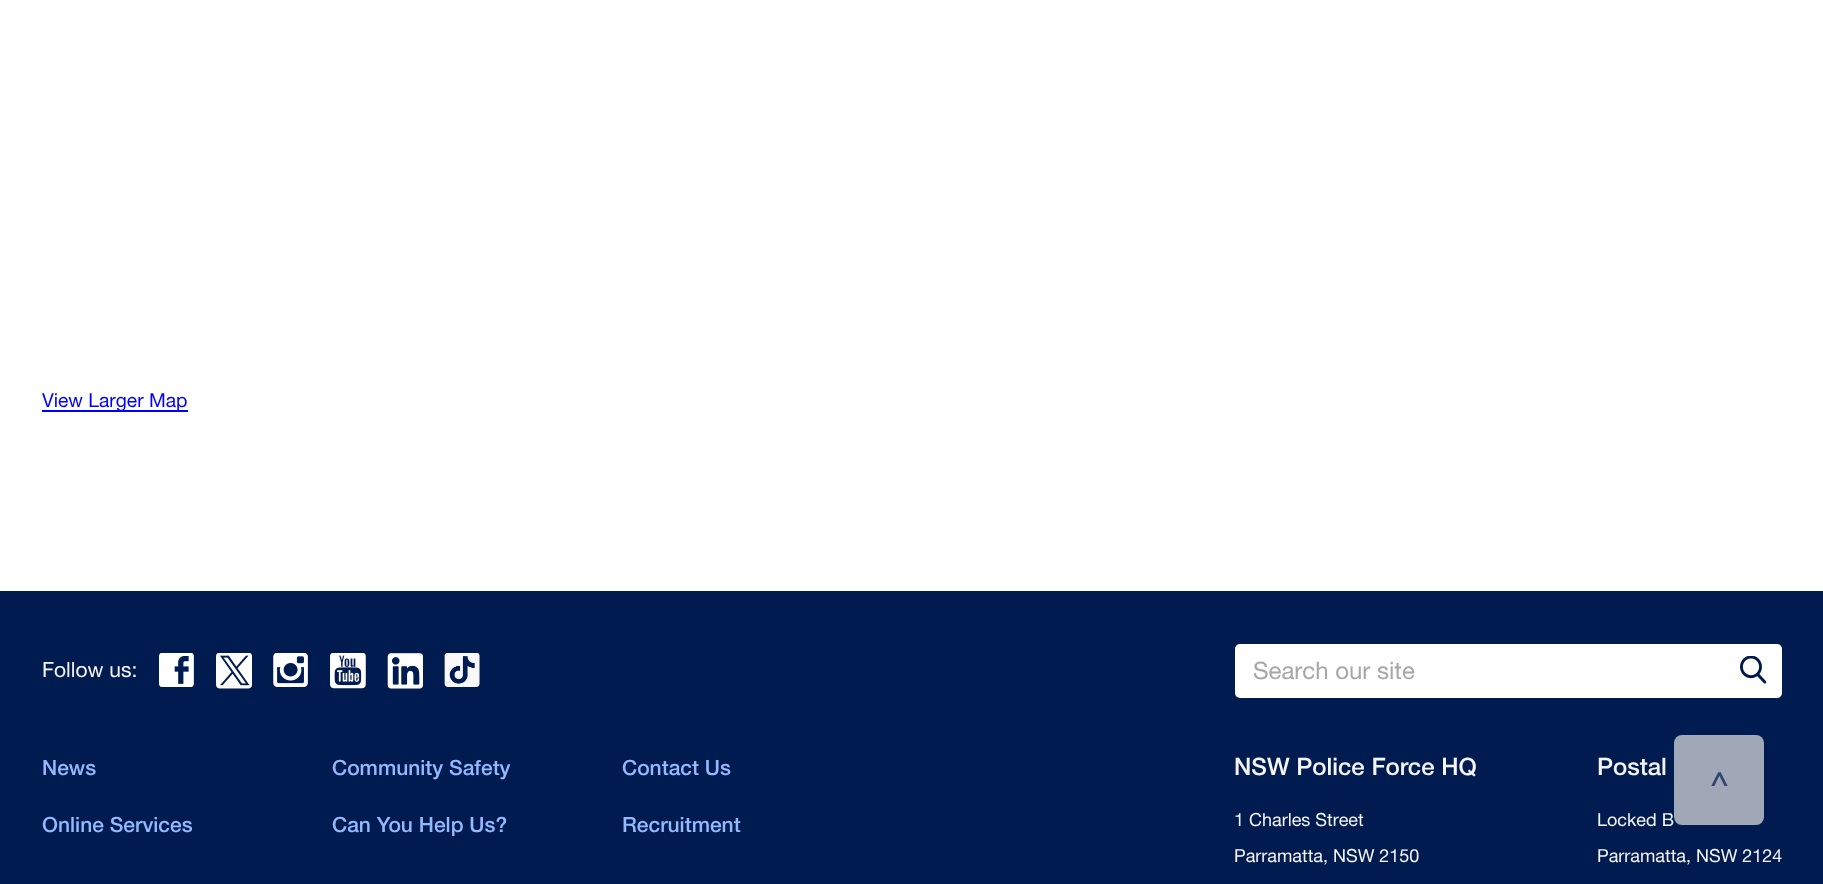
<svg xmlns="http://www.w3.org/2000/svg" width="1823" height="884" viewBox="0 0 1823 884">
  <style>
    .t1 { font: 19.25px Helvetica Neue; fill: #00f; }
    .t2 { font: bold 30px Helvetica Neue; fill: #30466f; }
    .t3 { font: 21px Helvetica Neue; fill: #f4f4f4; }
    .t4 { font: 24px Helvetica Neue; fill: #a7a7a7; }
    .t5 { font: 500 21px Helvetica Neue; fill: #94b9ff; }
    .t6 { font: 500 24px Helvetica Neue; fill: #f4f4f4; }
    .t7 { font: 18px Helvetica Neue; fill: #f4f4f4; }
  </style>
  <rect width="100%" height="100%" fill="#fff"/>
  <rect x="42" y="410" width="146" height="2" fill="#00f"/>
  <text x="42" y="407" class="t1">View Larger Map</text>
  <rect x="0" y="591" width="1823" height="293" fill="#001b50"/>
  <rect x="1674" y="735" width="90" height="90" rx="8" fill="#e4e4e4b3"/>
  <text x="1710" y="794" class="t2">^</text>
  <text x="42" y="677" class="t3">Follow us:</text>
  <image x="159" y="653" width="35" height="34" href="images/1.png"/>
  <image x="216" y="653" width="36" height="36" href="images/2.png"/>
  <image x="273" y="653" width="35" height="34" href="images/3.png"/>
  <image x="330" y="653" width="36" height="36" href="images/4.png"/>
  <image x="387" y="653" width="36" height="36" href="images/5.png"/>
  <image x="444" y="653" width="36" height="34" href="images/6.png"/>
  <rect x="1235" y="644" width="547" height="54" rx="5" fill="#fff"/>
  <text x="1253" y="679" class="t4">Search our site</text>
  <image x="1740" y="656" width="27" height="28" href="images/7.png"/>
  <text x="42" y="775" class="t5">News</text>
  <text x="332" y="775" class="t5">Community Safety</text>
  <text x="622" y="775" class="t5">Contact Us</text>
  <text x="42" y="832" class="t5">Online Services</text>
  <text x="332" y="832" class="t5">Can You Help Us?</text>
  <text x="622" y="832" class="t5">Recruitment</text>
  <text x="1234" y="775" class="t6">NSW Police Force HQ</text>
  <text x="1234" y="826" class="t7">1 Charles Street</text>
  <text x="1234" y="862" class="t7">Parramatta, NSW 2150</text>
  <text x="1597" y="775" class="t6">Postal</text>
  <text x="1597" y="826" class="t7">Locked B</text>
  <text x="1597" y="862" class="t7">Parramatta, NSW 2124</text>
</svg>
